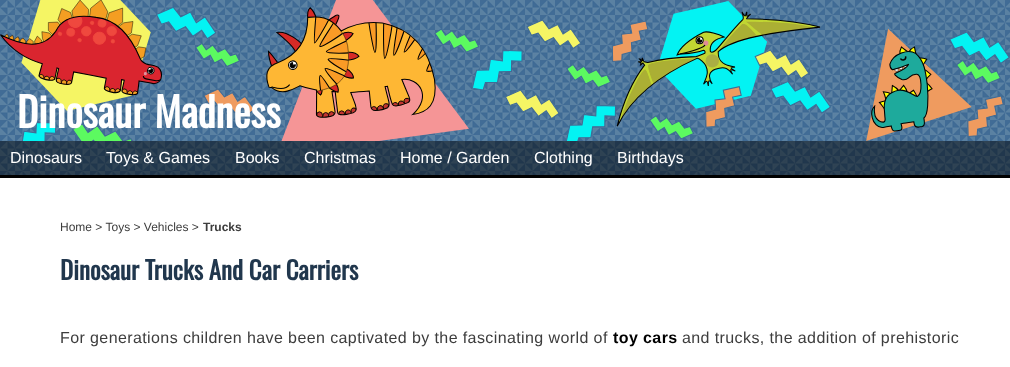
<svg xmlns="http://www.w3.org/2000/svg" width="1010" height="367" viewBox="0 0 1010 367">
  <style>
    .t1 { font: bold 40.5px Oswald; fill: #fff; }
    .t2 { font: 16px Liberation Sans; fill: #fff; }
    .t3 { font: 12px Liberation Sans; fill: #3d3d3d; }
    .t4 { font: bold 12px Liberation Sans; fill: #3d3d3d; }
    .t5 { font: bold 25px Oswald; fill: #21374d; }
    .t6 { font: 16px Liberation Sans; letter-spacing: 0.4px; fill: #3d3d3d; }
    .t7 { font: bold 16px Liberation Sans; letter-spacing: 0.4px; fill: #000; }
  </style>
  <rect width="100%" height="100%" fill="#fff"/>
  <image x="0" y="0" width="1010" height="141" href="images/1.png"/>
  <image x="0" y="0" width="1010" height="141" href="images/2.png"/>
  <text x="17" y="128" class="t1">Dinosaur Madness</text>
  <image x="0" y="141" width="1010" height="34" href="images/3.png"/>
  <rect x="0" y="175" width="1010" height="3" fill="#000"/>
  <text x="10" y="163" class="t2">Dinosaurs</text>
  <text x="106" y="163" class="t2">Toys &amp; Games</text>
  <text x="235" y="163" class="t2">Books</text>
  <text x="304" y="163" class="t2">Christmas</text>
  <text x="400" y="163" class="t2">Home / Garden</text>
  <text x="534" y="163" class="t2">Clothing</text>
  <text x="617" y="163" class="t2">Birthdays</text>
  <text x="60" y="231" class="t3">Home &gt; Toys &gt; Vehicles &gt;</text>
  <text x="203" y="231" class="t4">Trucks</text>
  <text x="60" y="280" class="t5">Dinosaur Trucks And Car Carriers</text>
  <text x="60" y="343" class="t6">For generations children have been captivated by the fascinating world of</text>
  <text x="613" y="343" class="t7">toy cars</text>
  <text x="682" y="343" class="t6">and trucks, the addition of prehistoric</text>
</svg>
